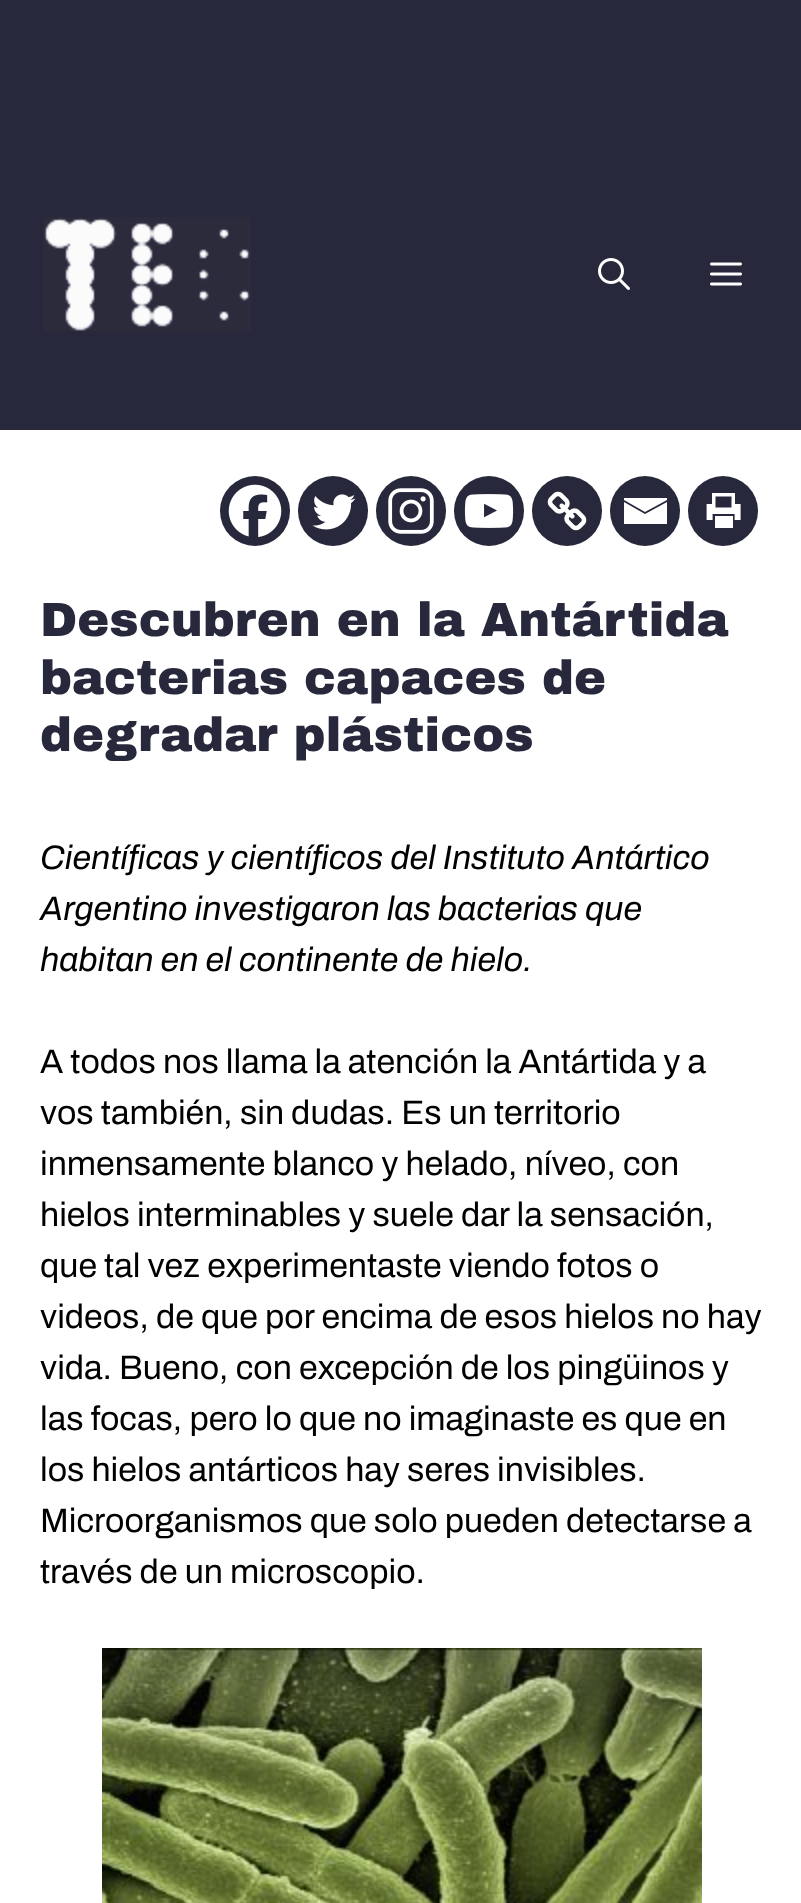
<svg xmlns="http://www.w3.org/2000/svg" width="801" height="1903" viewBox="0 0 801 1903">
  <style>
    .t1 { font: 900 48px Archivo Black; fill: #28283c; }
    .t2 { font: italic 34px Archivo; fill: #000; }
    .t3 { font: 34px Archivo; fill: #000; }
  </style>
  <rect width="100%" height="100%" fill="#28283c"/>
  <image x="43" y="217" width="208" height="114" href="images/1.png"/>
  <image x="598" y="258" width="32" height="32" href="images/2.png"/>
  <image x="710" y="262" width="32" height="24" href="images/3.png"/>
  <rect x="0" y="430" width="801" height="1473" fill="#fff"/>
  <circle cx="255" cy="511" r="35" fill="#28283c"/>
  <image x="228" y="484" width="54" height="53" href="images/4.png"/>
  <circle cx="333" cy="511" r="35" fill="#28283c"/>
  <image x="312" y="494" width="44" height="36" href="images/5.png"/>
  <circle cx="411" cy="511" r="35" fill="#28283c"/>
  <image x="388" y="488" width="46" height="46" href="images/6.png"/>
  <circle cx="489" cy="511" r="35" fill="#28283c"/>
  <image x="464" y="494" width="50" height="34" href="images/7.png"/>
  <circle cx="567" cy="511" r="35" fill="#28283c"/>
  <image x="547" y="491" width="40" height="40" href="images/8.png"/>
  <circle cx="645" cy="511" r="35" fill="#28283c"/>
  <path d="M622 498H667V500L645 512L624 500V498M624 502L645 514L667 502V524H624V502" fill="#fff"/>
  <circle cx="723" cy="511" r="35" fill="#28283c"/>
  <image x="706" y="493" width="35" height="35" href="images/9.png"/>
  <text x="40" y="636" class="t1">Descubren en la Antártida</text>
  <text x="40" y="694" class="t1">bacterias capaces de</text>
  <text x="40" y="751" class="t1">degradar plásticos</text>
  <text x="40" y="869" class="t2">Científicas y científicos del Instituto Antártico</text>
  <text x="40" y="920" class="t2">Argentino investigaron las bacterias que</text>
  <text x="40" y="971" class="t2">habitan en el continente de hielo.</text>
  <text x="40" y="1073" class="t3">A todos nos llama la atención la Antártida y a</text>
  <text x="40" y="1124" class="t3">vos también, sin dudas. Es un territorio</text>
  <text x="40" y="1175" class="t3">inmensamente blanco y helado, níveo, con</text>
  <text x="40" y="1226" class="t3">hielos interminables y suele dar la sensación,</text>
  <text x="40" y="1277" class="t3">que tal vez experimentaste viendo fotos o</text>
  <text x="40" y="1328" class="t3">videos, de que por encima de esos hielos no hay</text>
  <text x="40" y="1379" class="t3">vida. Bueno, con excepción de los pingüinos y</text>
  <text x="40" y="1430" class="t3">las focas, pero lo que no imaginaste es que en</text>
  <text x="40" y="1481" class="t3">los hielos antárticos hay seres invisibles.</text>
  <text x="40" y="1532" class="t3">Microorganismos que solo pueden detectarse a</text>
  <text x="40" y="1583" class="t3">través de un microscopio.</text>
  <image x="102" y="1648" width="600" height="255" href="images/10.png"/>
</svg>
